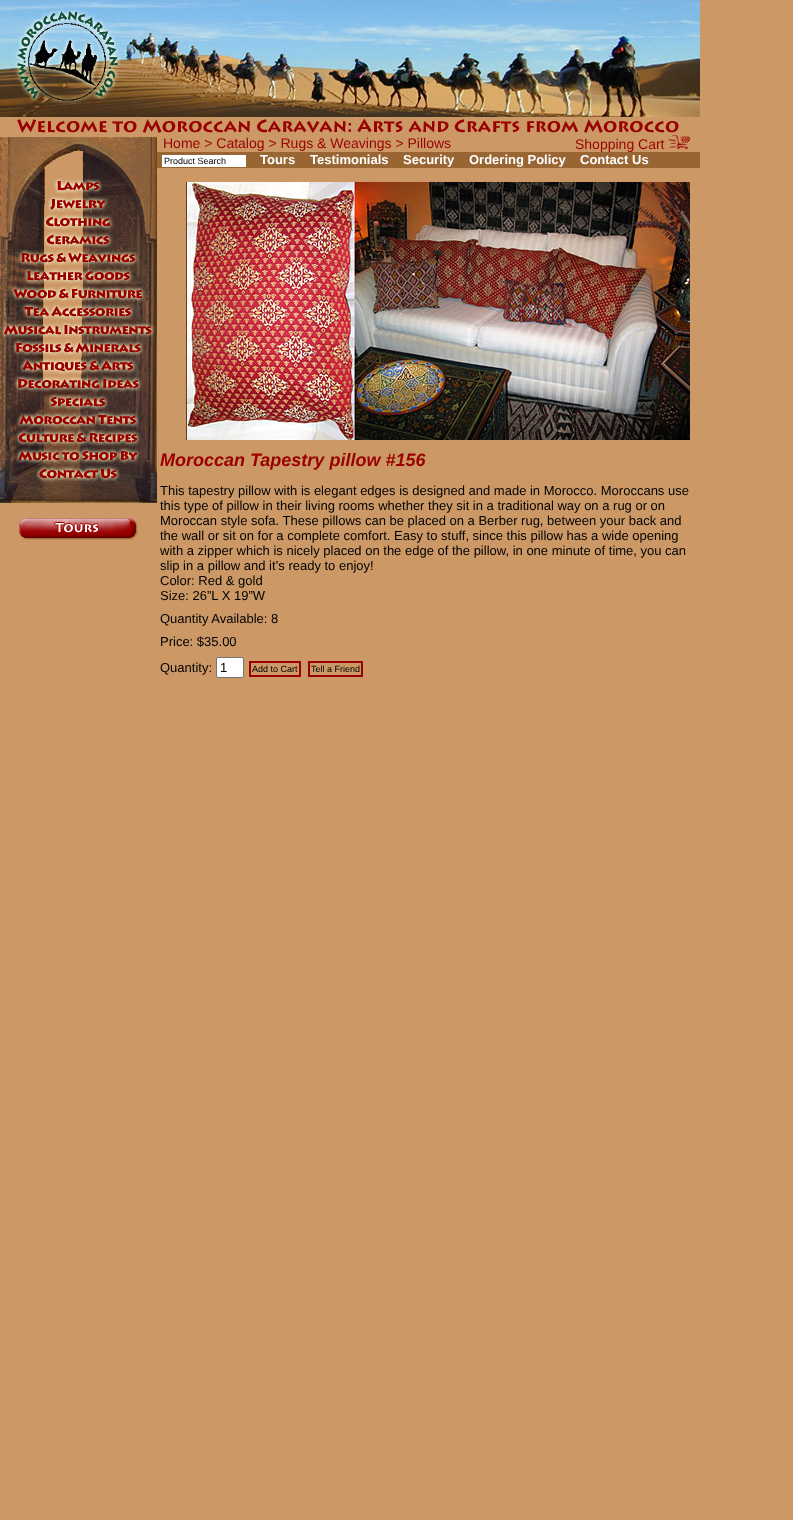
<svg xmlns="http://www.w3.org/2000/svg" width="793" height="1520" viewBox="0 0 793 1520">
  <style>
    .t1 { font: 14px Liberation Sans; fill: #900; }
    .t2 { font: 9px Liberation Sans; fill: #000; }
    .t3 { font: bold 13px Liberation Sans; fill: #fff; }
    .t4 { font: italic bold 18px Liberation Sans; fill: #900; }
    .t5 { font: 13px Liberation Sans; fill: #000; }
  </style>
  <rect width="100%" height="100%" fill="#c96"/>
  <image x="0" y="0" width="700" height="117" href="images/1.png"/>
  <image x="17" y="118" width="662" height="15" href="images/2.png"/>
  <image x="0" y="137" width="157" height="36" href="images/3.png"/>
  <image x="0" y="173" width="157" height="20" href="images/4.png"/>
  <image x="0" y="193" width="157" height="18" href="images/5.png"/>
  <image x="0" y="211" width="157" height="18" href="images/6.png"/>
  <image x="0" y="229" width="157" height="19" href="images/7.png"/>
  <image x="0" y="248" width="157" height="18" href="images/8.png"/>
  <image x="0" y="266" width="157" height="18" href="images/9.png"/>
  <image x="0" y="284" width="157" height="18" href="images/10.png"/>
  <image x="0" y="302" width="157" height="18" href="images/11.png"/>
  <image x="0" y="320" width="157" height="19" href="images/12.png"/>
  <image x="0" y="339" width="157" height="18" href="images/13.png"/>
  <image x="0" y="357" width="157" height="18" href="images/14.png"/>
  <image x="0" y="375" width="157" height="18" href="images/15.png"/>
  <image x="0" y="393" width="157" height="18" href="images/16.png"/>
  <image x="0" y="411" width="157" height="18" href="images/17.png"/>
  <image x="0" y="429" width="157" height="19" href="images/18.png"/>
  <image x="0" y="448" width="157" height="18" href="images/19.png"/>
  <image x="0" y="466" width="157" height="18" href="images/20.png"/>
  <image x="0" y="484" width="157" height="19" href="images/21.png"/>
  <image x="19" y="518" width="119" height="22" href="images/22.png"/>
  <text x="163" y="148" class="t1">Home &gt; Catalog &gt; Rugs &amp; Weavings &gt; Pillows</text>
  <text x="575" y="149" class="t1">Shopping Cart</text>
  <image x="668" y="135" width="22" height="14" href="images/23.png"/>
  <rect x="157" y="152" width="543" height="16" fill="#963"/>
  <rect x="162" y="155" width="84" height="12" fill="#fff"/>
  <text x="164" y="164" class="t2">Product Search</text>
  <text x="260" y="164" class="t3">Tours</text>
  <text x="310" y="164" class="t3">Testimonials</text>
  <text x="403" y="164" class="t3">Security</text>
  <text x="469" y="164" class="t3">Ordering Policy</text>
  <text x="580" y="164" class="t3">Contact Us</text>
  <image x="186" y="182" width="504" height="258" href="images/24.png"/>
  <text x="160" y="466" class="t4">Moroccan Tapestry pillow #156</text>
  <text x="160" y="495" class="t5">This tapestry pillow with is elegant edges is designed and made in Morocco. Moroccans use</text>
  <text x="160" y="510" class="t5">this type of pillow in their living rooms whether they sit in a traditional way on a rug or on</text>
  <text x="160" y="525" class="t5">Moroccan style sofa. These pillows can be placed on a Berber rug, between your back and</text>
  <text x="160" y="540" class="t5">the wall or sit on for a complete comfort. Easy to stuff, since this pillow has a wide opening</text>
  <text x="160" y="555" class="t5">with a zipper which is nicely placed on the edge of the pillow, in one minute of time, you can</text>
  <text x="160" y="570" class="t5">slip in a pillow and it’s ready to enjoy!</text>
  <text x="160" y="585" class="t5">Color: Red &amp; gold</text>
  <text x="160" y="600" class="t5">Size: 26”L X 19”W</text>
  <text x="160" y="623" class="t5">Quantity Available: 8</text>
  <text x="160" y="646" class="t5">Price: $35.00</text>
  <text x="160" y="672" class="t5">Quantity:</text>
  <rect x="216.5" y="657.5" width="27" height="20" rx="1.5" fill="#fff" stroke="#767676"/>
  <text x="220" y="672" class="t5">1</text>
  <rect x="250" y="662" width="50" height="14" fill="none" stroke="#900" stroke-width="2"/>
  <text x="252" y="672" class="t2">Add to Cart</text>
  <rect x="309" y="662" width="53" height="14" fill="none" stroke="#900" stroke-width="2"/>
  <text x="311" y="672" class="t2">Tell a Friend</text>
</svg>
